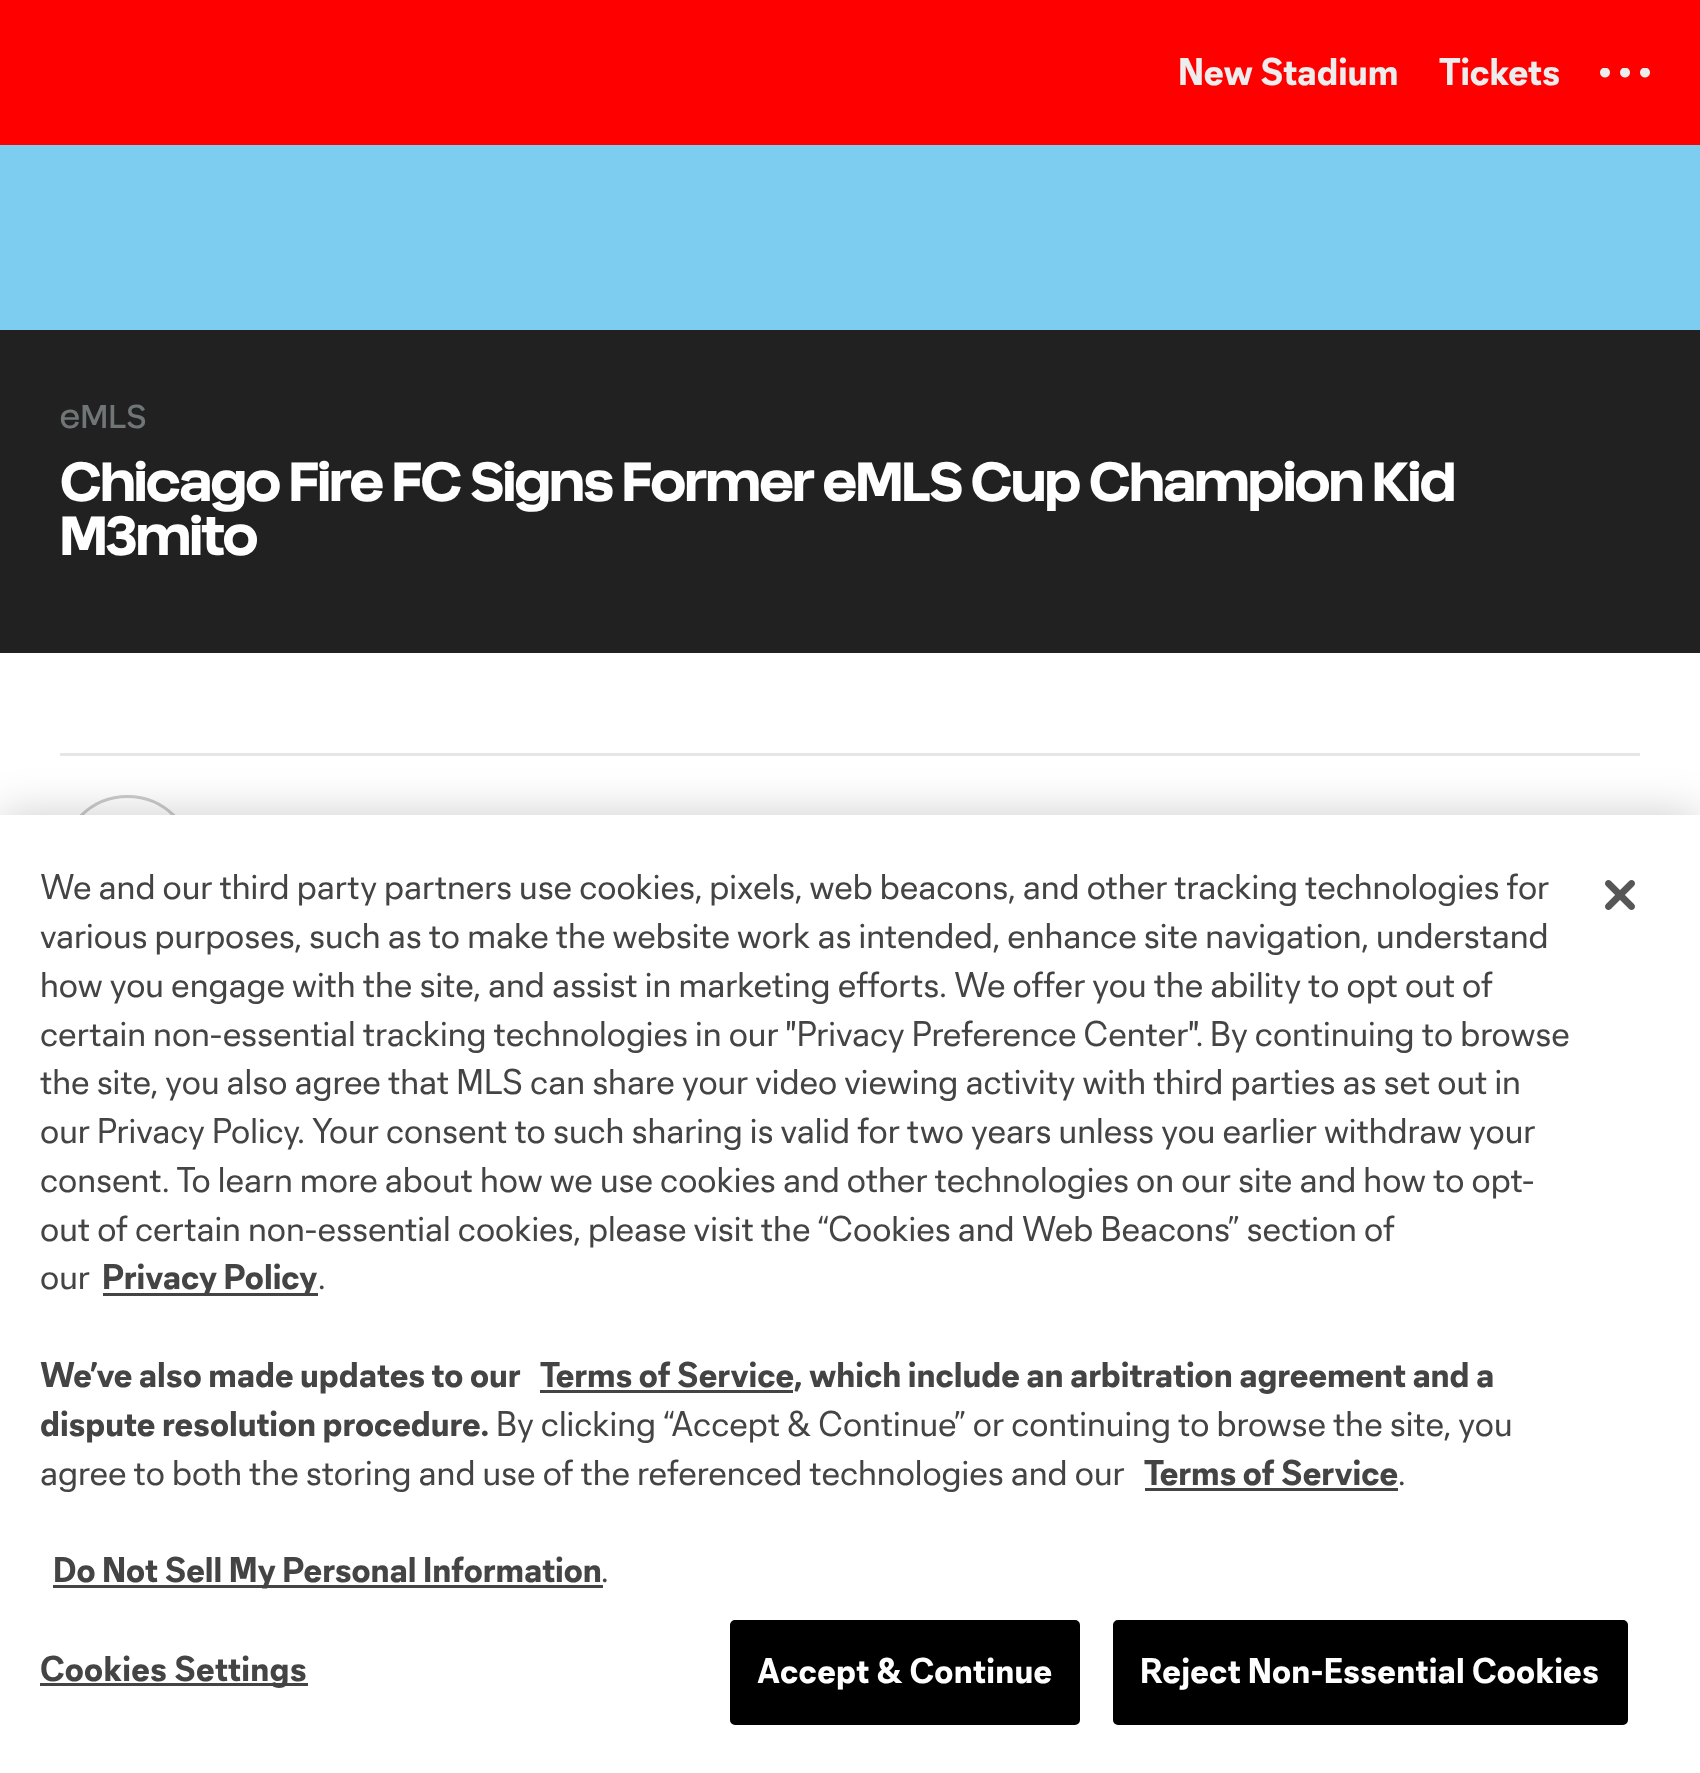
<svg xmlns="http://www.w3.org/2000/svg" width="1700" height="1773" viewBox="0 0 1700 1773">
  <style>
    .t1 { font: bold 35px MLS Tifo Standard; fill: #ededed; }
    .t2 { font: 500 30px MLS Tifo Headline; letter-spacing: 1px; fill: #707576; }
    .t3 { font: bold 50px MLS Tifo Headline; letter-spacing: -1.15px; fill: #fff; }
    .t4 { font: 32.5px MLS Tifo Standard; fill: #444; }
    .t5 { font: bold 32.5px MLS Tifo Standard; fill: #444; }
    .t6 { font: bold 32.5px MLS Tifo Standard; letter-spacing: 0.3px; fill: #444; }
    .t7 { font: bold 32.5px MLS Tifo Standard; letter-spacing: 0.3px; fill: #fff; }
  </style>
  <rect width="100%" height="100%" fill="#fff"/>
  <rect x="0" y="0" width="1700" height="145" fill="#f00"/>
  <text x="1178" y="85" class="t1">New Stadium</text>
  <text x="1439" y="85" class="t1">Tickets</text>
  <image x="1600" y="68" width="50" height="10" href="images/1.png"/>
  <rect x="0" y="145" width="1700" height="185" fill="#7ccdef"/>
  <rect x="0" y="330" width="1700" height="323" fill="#212121"/>
  <text x="60" y="428" class="t2">eMLS</text>
  <text x="60" y="501" class="t3">Chicago Fire FC Signs Former eMLS Cup Champion Kid</text>
  <text x="60" y="555" class="t3">M3mito</text>
  <rect x="60" y="753" width="1580" height="3" fill="#e6e6e6"/>
  <circle cx="127.5" cy="862.5" r="66" fill="none" stroke="#cbcbcb" stroke-width="3"/>
  <rect x="0" y="815" width="1700" height="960" fill="#00000033" filter="blur(22.5px)"/>
  <rect x="0" y="815" width="1700" height="958" fill="#fff"/>
  <text x="40" y="899" class="t4">We and our third party partners use cookies, pixels, web beacons, and other tracking technologies for</text>
  <text x="40" y="948" class="t4">various purposes, such as to make the website work as intended, enhance site navigation, understand</text>
  <text x="40" y="997" class="t4">how you engage with the site, and assist in marketing efforts.</text>
  <text x="954" y="997" class="t4">We offer you the ability to opt out of</text>
  <text x="40" y="1046" class="t4">certain non-essential tracking technologies in our "Privacy Preference Center".</text>
  <text x="1210" y="1046" class="t4">By continuing to browse</text>
  <text x="40" y="1094" class="t4">the site, you also agree that MLS can share your video viewing activity with third parties as set out in</text>
  <text x="40" y="1143" class="t4">our Privacy Policy. Your consent to such sharing is valid for two years unless you earlier withdraw your</text>
  <text x="40" y="1192" class="t4">consent. To learn more about how we use cookies and other technologies on our site and how to opt-</text>
  <text x="40" y="1241" class="t4">out of certain non-essential cookies, please visit the “Cookies and Web Beacons” section of</text>
  <text x="40" y="1289" class="t4">our</text>
  <rect x="103" y="1293" width="215" height="3" fill="#444"/>
  <text x="102" y="1289" class="t5">Privacy Policy</text>
  <text x="318" y="1289" class="t4">.</text>
  <text x="40" y="1387" class="t5">We’ve also made updates to our</text>
  <rect x="540" y="1390" width="253" height="3" fill="#444"/>
  <text x="540" y="1387" class="t5">Terms of Service, which include an arbitration agreement and a</text>
  <text x="40" y="1436" class="t5">dispute resolution procedure.</text>
  <text x="496" y="1436" class="t4">By clicking “Accept &amp; Continue” or continuing to browse the site, you</text>
  <text x="40" y="1485" class="t4">agree to both the storing and use of the referenced technologies and our</text>
  <text x="1144" y="1485" class="t5">Terms of Service</text>
  <rect x="1145" y="1488" width="253" height="3" fill="#444"/>
  <text x="1398" y="1485" class="t4">.</text>
  <rect x="53" y="1585" width="550" height="3" fill="#444"/>
  <text x="53" y="1582" class="t5">Do Not Sell My Personal Information</text>
  <text x="601" y="1582" class="t4">.</text>
  <rect x="40" y="1683" width="268" height="3" fill="#444"/>
  <text x="40" y="1681" class="t6">Cookies Settings</text>
  <rect x="731.5" y="1621.5" width="347" height="102" rx="3.5" fill="#000" stroke="#000" stroke-width="3"/>
  <text x="757" y="1683" class="t7">Accept &amp; Continue</text>
  <rect x="1114.5" y="1621.5" width="512" height="102" rx="3.5" fill="#000" stroke="#000" stroke-width="3"/>
  <text x="1140" y="1683" class="t7">Reject Non-Essential Cookies</text>
  <image x="1605" y="880" width="30" height="30" href="images/2.png"/>
</svg>
